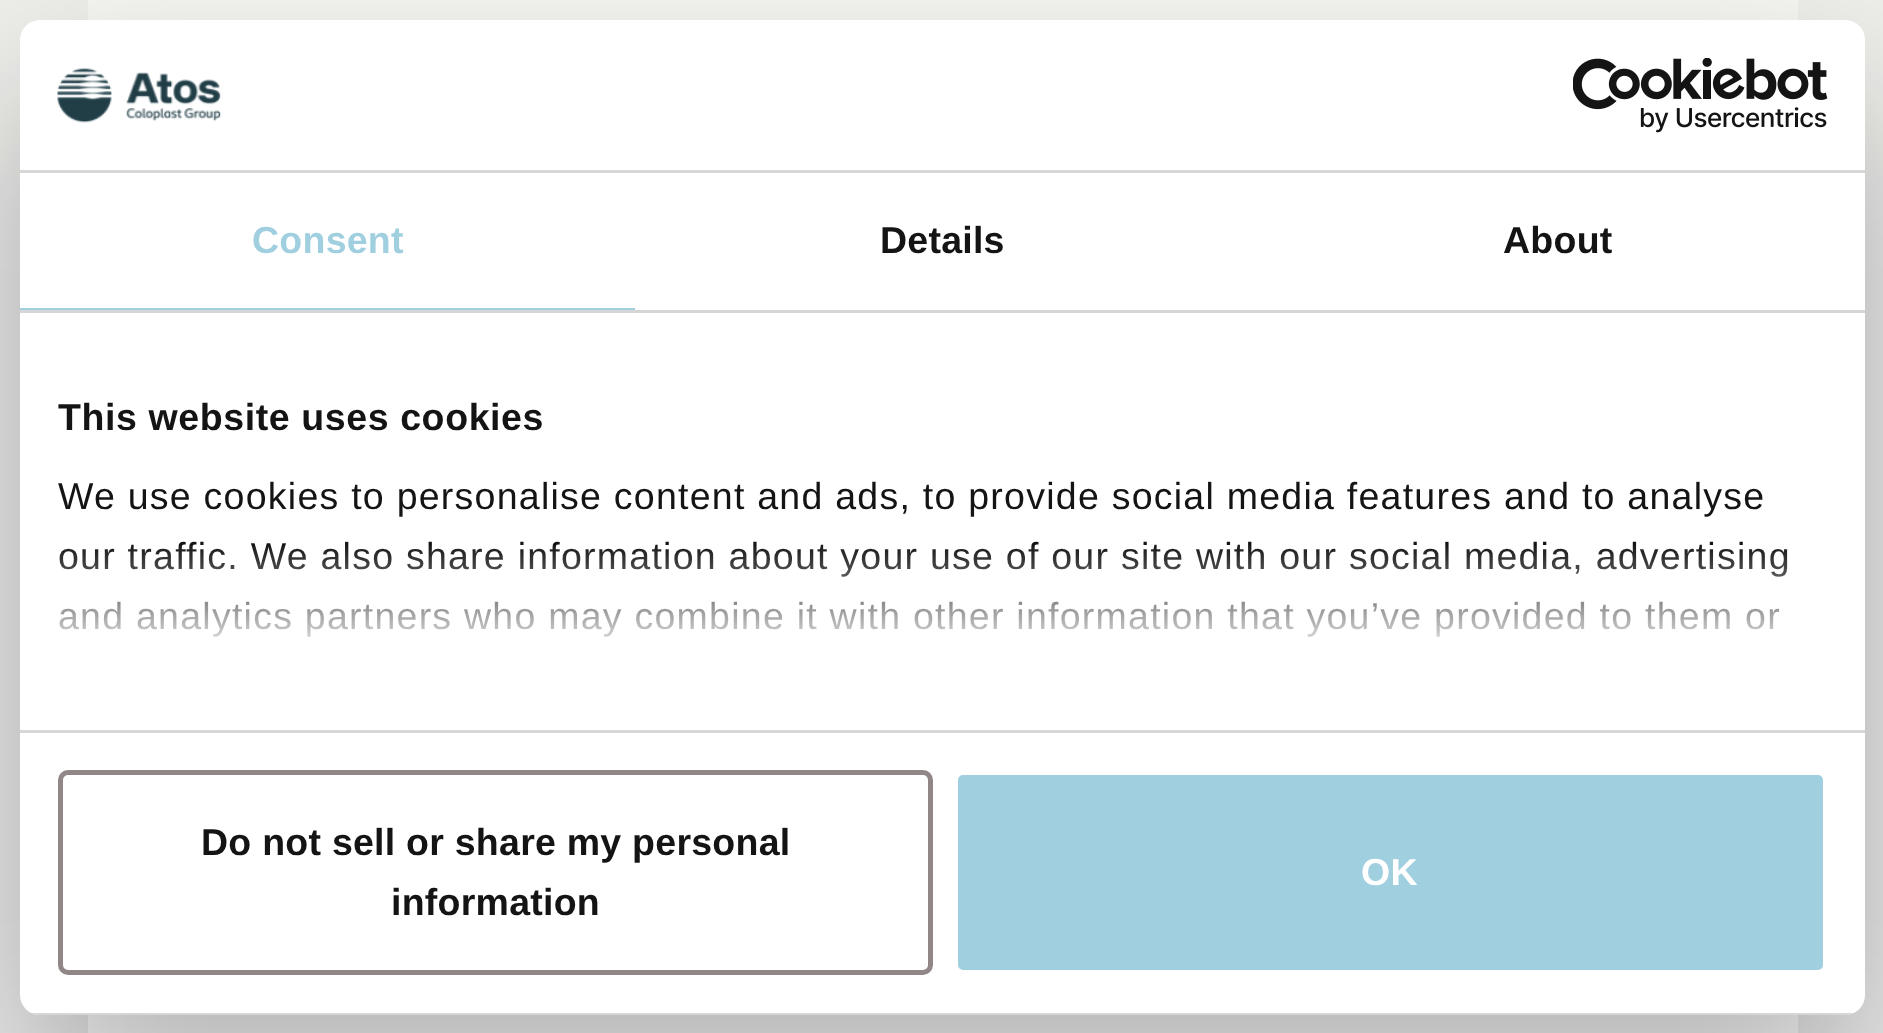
<svg xmlns="http://www.w3.org/2000/svg" width="1883" height="1033" viewBox="0 0 1883 1033">
  <style>
    .t1 { font: bold 37.5px Liberation Sans; letter-spacing: 0.25px; fill: #a0cfe0; }
    .t2 { font: bold 37.5px Liberation Sans; letter-spacing: 0.25px; fill: #141414; }
    .t3 { font: bold 37.5px Liberation Sans; letter-spacing: 0.6px; fill: #141414; }
    .t4 { font: 37.5px Liberation Sans; letter-spacing: 1.25px; fill: #141414; }
    .t5 { font: bold 37.5px Liberation Sans; letter-spacing: 0.25px; fill: #fff; }
  </style>
  <defs>
    <linearGradient id="g1" gradientUnits="userSpaceOnUse" x1="926" y1="730" x2="926" y2="543"><stop offset="0" stop-color="#fff"/><stop offset="0.5" stop-color="#fff" stop-opacity="0.8"/><stop offset="1" stop-color="#fff" stop-opacity="0"/></linearGradient>
    <clipPath id="clip1"><rect x="20" y="20" width="1845" height="995" rx="20"/></clipPath>
  </defs>
  <rect width="100%" height="100%" fill="#eee"/>
  <rect x="88" y="0" width="1710" height="1033" fill="#fff"/>
  <path d="M-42 0H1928V118C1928 151 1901 178 1868 178H18C-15 178-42 151-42 118Z" fill="#f0efea80"/>
  <rect x="20" y="100" width="1845" height="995" rx="20" fill="#0000004d" filter="blur(85px)"/>
  <rect x="20" y="20" width="1845" height="995" rx="20" fill="#fff"/>
  <rect x="20" y="170" width="1845" height="3" fill="#d6d6d6"/>
  <image x="57" y="68" width="164" height="55" href="images/1.png"/>
  <image x="1573" y="58" width="255" height="75" href="images/2.png"/>
  <rect x="20" y="310" width="1845" height="3" fill="#d6d6d6"/>
  <rect x="20" y="308" width="615" height="2" fill="#a0cfe0"/>
  <text x="252" y="253" class="t1">Consent</text>
  <text x="880" y="253" class="t2">Details</text>
  <text x="1503" y="253" class="t2">About</text>
  <rect x="20" y="730" width="1845" height="3" fill="#d6d6d6"/>
  <text x="58" y="430" class="t3">This website uses cookies</text>
  <text x="58" y="509" class="t4">We use cookies to personalise content and ads, to provide social media features and to analyse</text>
  <text x="58" y="569" class="t4">our traffic. We also share information about your use of our site with our social media, advertising</text>
  <text x="58" y="629" class="t4">and analytics partners who may combine it with other information that you’ve provided to them or</text>
  <rect x="59" y="546" width="1728" height="91" fill="url(#g1)"/>
  <g clip-path="url(#clip1)">
    <rect x="31" y="1013" width="1823" height="2" fill="#d6d6d6"/>
  </g>
  <rect x="60.5" y="772.5" width="870" height="200" rx="7.5" fill="none" stroke="#918787" stroke-width="5"/>
  <text x="201" y="855" class="t2">Do not sell or share my personal</text>
  <text x="391" y="915" class="t2">information</text>
  <rect x="955.5" y="772.5" width="870" height="200" rx="7.5" fill="#a0cfe0" stroke="#fff" stroke-width="5"/>
  <text x="1361" y="885" class="t5">OK</text>
</svg>
